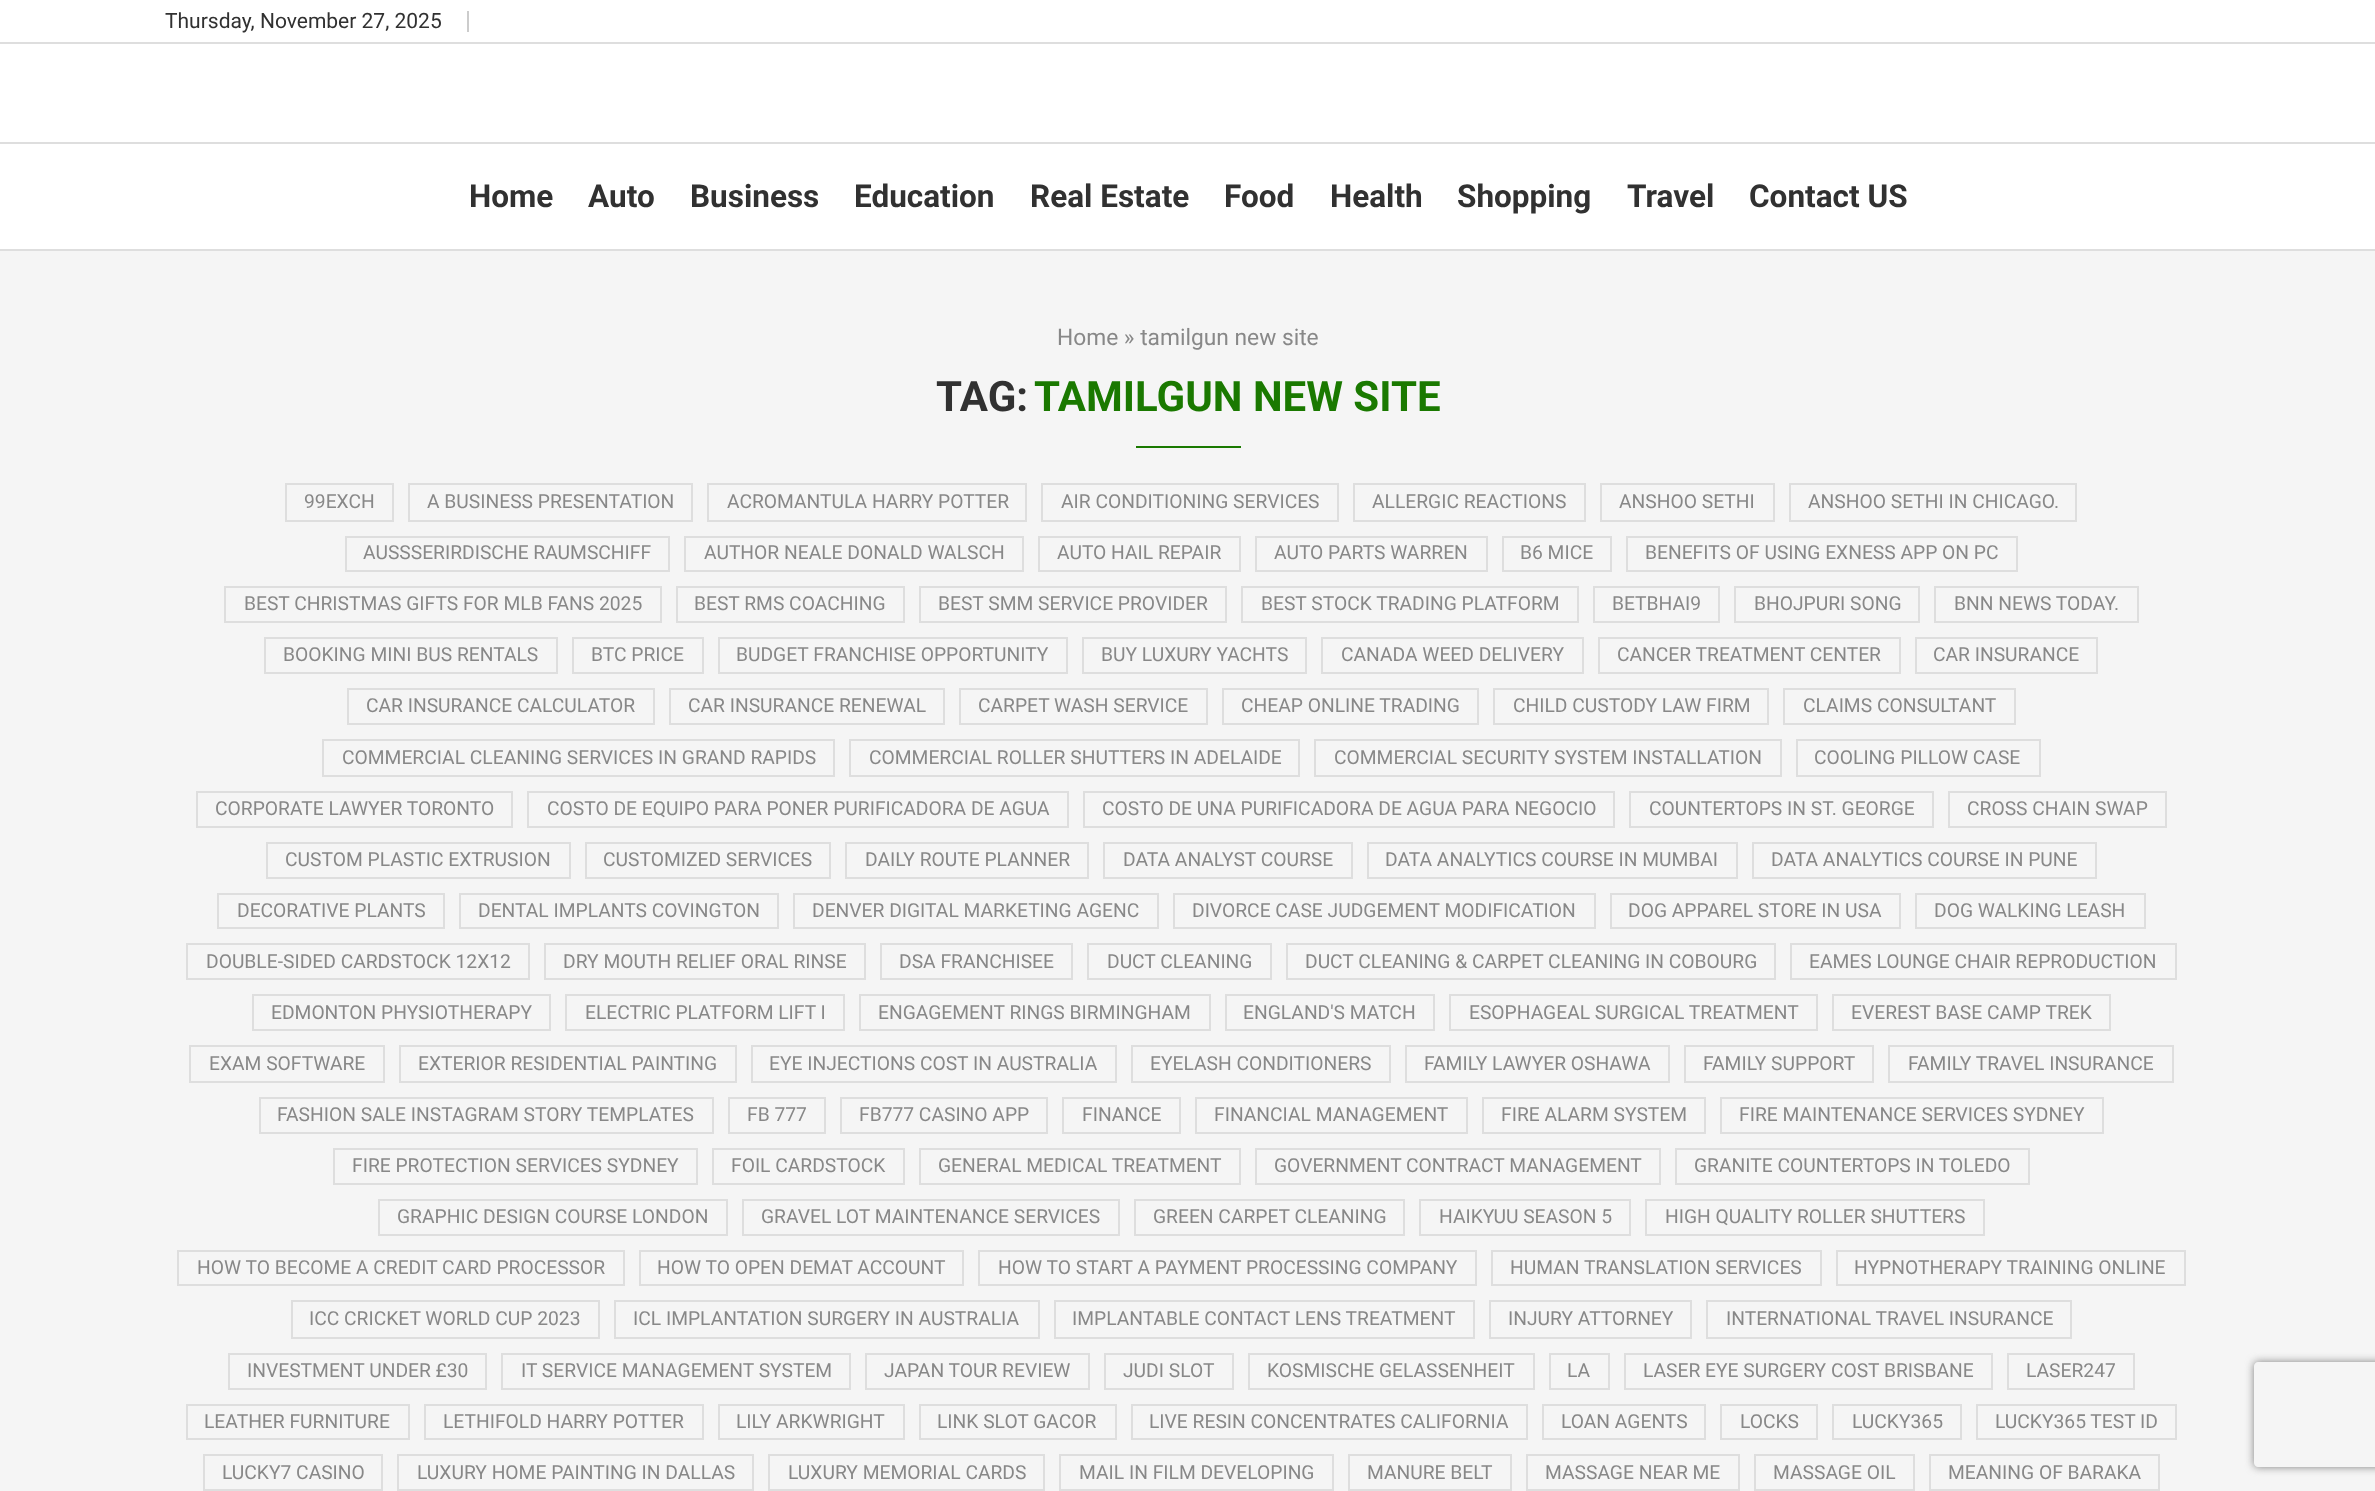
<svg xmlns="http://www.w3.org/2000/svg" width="2375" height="1491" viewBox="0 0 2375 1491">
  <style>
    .t1 { font: 21px Roboto; fill: #313131; }
    .t2 { font: bold 31.5px Roboto; fill: #313131; }
    .t3 { font: 22.75px Roboto; fill: #888; }
    .t4 { font: bold 42px Roboto; fill: #313131; }
    .t5 { font: bold 42px Roboto; fill: #1a7900; }
    .t6 { font: 19.25px Roboto; fill: #888; }
  </style>
  <defs>
    <clipPath id="clip1"><path d="M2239 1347H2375V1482H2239ZM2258 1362H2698C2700 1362 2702 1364 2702 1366V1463C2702 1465 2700 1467 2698 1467H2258C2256 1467 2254 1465 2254 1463V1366C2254 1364 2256 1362 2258 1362Z" clip-rule="evenodd"/></clipPath>
  </defs>
  <rect width="100%" height="100%" fill="#fff"/>
  <rect x="0" y="42" width="2375" height="2" fill="#dedede"/>
  <text x="165" y="28" class="t1">Thursday, November 27, 2025</text>
  <rect x="467" y="11" width="2" height="21" fill="#ccc"/>
  <rect x="0" y="142" width="2375" height="2" fill="#dedede"/>
  <rect x="0" y="249" width="2375" height="2" fill="#dedede"/>
  <text x="469" y="207" class="t2">Home</text>
  <text x="588" y="207" class="t2">Auto</text>
  <text x="690" y="207" class="t2">Business</text>
  <text x="854" y="207" class="t2">Education</text>
  <text x="1030" y="207" class="t2">Real Estate</text>
  <text x="1224" y="207" class="t2">Food</text>
  <text x="1330" y="207" class="t2">Health</text>
  <text x="1457" y="207" class="t2">Shopping</text>
  <text x="1627" y="207" class="t2">Travel</text>
  <text x="1749" y="207" class="t2">Contact US</text>
  <rect x="0" y="251" width="2375" height="1240" fill="#f5f5f5"/>
  <text x="1057" y="345" class="t3">Home » tamilgun new site</text>
  <text x="936" y="411" class="t4">TAG:</text>
  <text x="1034" y="411" class="t5">TAMILGUN NEW SITE</text>
  <rect x="1136" y="446" width="105" height="2" fill="#1a7900"/>
  <rect x="286" y="484" width="107" height="37" fill="none" stroke="#dedede" stroke-width="2"/>
  <text x="304" y="508" class="t6">99EXCH</text>
  <rect x="409" y="484" width="283" height="37" fill="none" stroke="#dedede" stroke-width="2"/>
  <text x="427" y="508" class="t6">A BUSINESS PRESENTATION</text>
  <rect x="708" y="484" width="318" height="37" fill="none" stroke="#dedede" stroke-width="2"/>
  <text x="727" y="508" class="t6">ACROMANTULA HARRY POTTER</text>
  <rect x="1042" y="484" width="296" height="37" fill="none" stroke="#dedede" stroke-width="2"/>
  <text x="1061" y="508" class="t6">AIR CONDITIONING SERVICES</text>
  <rect x="1354" y="484" width="231" height="37" fill="none" stroke="#dedede" stroke-width="2"/>
  <text x="1372" y="508" class="t6">ALLERGIC REACTIONS</text>
  <rect x="1601" y="484" width="173" height="37" fill="none" stroke="#dedede" stroke-width="2"/>
  <text x="1619" y="508" class="t6">ANSHOO SETHI</text>
  <rect x="1790" y="484" width="286" height="37" fill="none" stroke="#dedede" stroke-width="2"/>
  <text x="1808" y="508" class="t6">ANSHOO SETHI IN CHICAGO.</text>
  <rect x="346" y="537" width="323" height="34" fill="none" stroke="#dedede" stroke-width="2"/>
  <text x="363" y="559" class="t6">AUSSSERIRDISCHE RAUMSCHIFF</text>
  <rect x="685" y="537" width="338" height="34" fill="none" stroke="#dedede" stroke-width="2"/>
  <text x="704" y="559" class="t6">AUTHOR NEALE DONALD WALSCH</text>
  <rect x="1039" y="537" width="201" height="34" fill="none" stroke="#dedede" stroke-width="2"/>
  <text x="1057" y="559" class="t6">AUTO HAIL REPAIR</text>
  <rect x="1256" y="537" width="231" height="34" fill="none" stroke="#dedede" stroke-width="2"/>
  <text x="1274" y="559" class="t6">AUTO PARTS WARREN</text>
  <rect x="1503" y="537" width="108" height="34" fill="none" stroke="#dedede" stroke-width="2"/>
  <text x="1520" y="559" class="t6">B6 MICE</text>
  <rect x="1627" y="537" width="390" height="34" fill="none" stroke="#dedede" stroke-width="2"/>
  <text x="1645" y="559" class="t6">BENEFITS OF USING EXNESS APP ON PC</text>
  <rect x="225" y="587" width="436" height="35" fill="none" stroke="#dedede" stroke-width="2"/>
  <text x="244" y="610" class="t6">BEST CHRISTMAS GIFTS FOR MLB FANS 2025</text>
  <rect x="677" y="587" width="227" height="35" fill="none" stroke="#dedede" stroke-width="2"/>
  <text x="694" y="610" class="t6">BEST RMS COACHING</text>
  <rect x="920" y="587" width="306" height="35" fill="none" stroke="#dedede" stroke-width="2"/>
  <text x="938" y="610" class="t6">BEST SMM SERVICE PROVIDER</text>
  <rect x="1242" y="587" width="336" height="35" fill="none" stroke="#dedede" stroke-width="2"/>
  <text x="1261" y="610" class="t6">BEST STOCK TRADING PLATFORM</text>
  <rect x="1594" y="587" width="125" height="35" fill="none" stroke="#dedede" stroke-width="2"/>
  <text x="1612" y="610" class="t6">BETBHAI9</text>
  <rect x="1735" y="587" width="184" height="35" fill="none" stroke="#dedede" stroke-width="2"/>
  <text x="1754" y="610" class="t6">BHOJPURI SONG</text>
  <rect x="1935" y="587" width="203" height="35" fill="none" stroke="#dedede" stroke-width="2"/>
  <text x="1954" y="610" class="t6">BNN NEWS TODAY.</text>
  <rect x="265" y="638" width="292" height="35" fill="none" stroke="#dedede" stroke-width="2"/>
  <text x="283" y="661" class="t6">BOOKING MINI BUS RENTALS</text>
  <rect x="573" y="638" width="130" height="35" fill="none" stroke="#dedede" stroke-width="2"/>
  <text x="591" y="661" class="t6">BTC PRICE</text>
  <rect x="719" y="638" width="348" height="35" fill="none" stroke="#dedede" stroke-width="2"/>
  <text x="736" y="661" class="t6">BUDGET FRANCHISE OPPORTUNITY</text>
  <rect x="1083" y="638" width="223" height="35" fill="none" stroke="#dedede" stroke-width="2"/>
  <text x="1101" y="661" class="t6">BUY LUXURY YACHTS</text>
  <rect x="1322" y="638" width="261" height="35" fill="none" stroke="#dedede" stroke-width="2"/>
  <text x="1341" y="661" class="t6">CANADA WEED DELIVERY</text>
  <rect x="1599" y="638" width="301" height="35" fill="none" stroke="#dedede" stroke-width="2"/>
  <text x="1617" y="661" class="t6">CANCER TREATMENT CENTER</text>
  <rect x="1916" y="638" width="181" height="35" fill="none" stroke="#dedede" stroke-width="2"/>
  <text x="1933" y="661" class="t6">CAR INSURANCE</text>
  <rect x="348" y="689" width="306" height="35" fill="none" stroke="#dedede" stroke-width="2"/>
  <text x="366" y="712" class="t6">CAR INSURANCE CALCULATOR</text>
  <rect x="670" y="689" width="274" height="35" fill="none" stroke="#dedede" stroke-width="2"/>
  <text x="688" y="712" class="t6">CAR INSURANCE RENEWAL</text>
  <rect x="960" y="689" width="247" height="35" fill="none" stroke="#dedede" stroke-width="2"/>
  <text x="978" y="712" class="t6">CARPET WASH SERVICE</text>
  <rect x="1223" y="689" width="255" height="35" fill="none" stroke="#dedede" stroke-width="2"/>
  <text x="1241" y="712" class="t6">CHEAP ONLINE TRADING</text>
  <rect x="1494" y="689" width="274" height="35" fill="none" stroke="#dedede" stroke-width="2"/>
  <text x="1513" y="712" class="t6">CHILD CUSTODY LAW FIRM</text>
  <rect x="1784" y="689" width="231" height="35" fill="none" stroke="#dedede" stroke-width="2"/>
  <text x="1803" y="712" class="t6">CLAIMS CONSULTANT</text>
  <rect x="323" y="740" width="511" height="36" fill="none" stroke="#dedede" stroke-width="2"/>
  <text x="342" y="764" class="t6">COMMERCIAL CLEANING SERVICES IN GRAND RAPIDS</text>
  <rect x="850" y="740" width="449" height="36" fill="none" stroke="#dedede" stroke-width="2"/>
  <text x="869" y="764" class="t6">COMMERCIAL ROLLER SHUTTERS IN ADELAIDE</text>
  <rect x="1315" y="740" width="466" height="36" fill="none" stroke="#dedede" stroke-width="2"/>
  <text x="1334" y="764" class="t6">COMMERCIAL SECURITY SYSTEM INSTALLATION</text>
  <rect x="1797" y="740" width="243" height="36" fill="none" stroke="#dedede" stroke-width="2"/>
  <text x="1814" y="764" class="t6">COOLING PILLOW CASE</text>
  <rect x="197" y="792" width="315" height="35" fill="none" stroke="#dedede" stroke-width="2"/>
  <text x="215" y="815" class="t6">CORPORATE LAWYER TORONTO</text>
  <rect x="528" y="792" width="540" height="35" fill="none" stroke="#dedede" stroke-width="2"/>
  <text x="547" y="815" class="t6">COSTO DE EQUIPO PARA PONER PURIFICADORA DE AGUA</text>
  <rect x="1084" y="792" width="530" height="35" fill="none" stroke="#dedede" stroke-width="2"/>
  <text x="1102" y="815" class="t6">COSTO DE UNA PURIFICADORA DE AGUA PARA NEGOCIO</text>
  <rect x="1630" y="792" width="303" height="35" fill="none" stroke="#dedede" stroke-width="2"/>
  <text x="1649" y="815" class="t6">COUNTERTOPS IN ST. GEORGE</text>
  <rect x="1949" y="792" width="217" height="35" fill="none" stroke="#dedede" stroke-width="2"/>
  <text x="1967" y="815" class="t6">CROSS CHAIN SWAP</text>
  <rect x="267" y="843" width="303" height="35" fill="none" stroke="#dedede" stroke-width="2"/>
  <text x="285" y="866" class="t6">CUSTOM PLASTIC EXTRUSION</text>
  <rect x="586" y="843" width="244" height="35" fill="none" stroke="#dedede" stroke-width="2"/>
  <text x="603" y="866" class="t6">CUSTOMIZED SERVICES</text>
  <rect x="846" y="843" width="242" height="35" fill="none" stroke="#dedede" stroke-width="2"/>
  <text x="865" y="866" class="t6">DAILY ROUTE PLANNER</text>
  <rect x="1104" y="843" width="248" height="35" fill="none" stroke="#dedede" stroke-width="2"/>
  <text x="1123" y="866" class="t6">DATA ANALYST COURSE</text>
  <rect x="1368" y="843" width="369" height="35" fill="none" stroke="#dedede" stroke-width="2"/>
  <text x="1385" y="866" class="t6">DATA ANALYTICS COURSE IN MUMBAI</text>
  <rect x="1753" y="843" width="343" height="35" fill="none" stroke="#dedede" stroke-width="2"/>
  <text x="1771" y="866" class="t6">DATA ANALYTICS COURSE IN PUNE</text>
  <rect x="218" y="894" width="226" height="34" fill="none" stroke="#dedede" stroke-width="2"/>
  <text x="237" y="917" class="t6">DECORATIVE PLANTS</text>
  <rect x="460" y="894" width="318" height="34" fill="none" stroke="#dedede" stroke-width="2"/>
  <text x="478" y="917" class="t6">DENTAL IMPLANTS COVINGTON</text>
  <rect x="794" y="894" width="364" height="34" fill="none" stroke="#dedede" stroke-width="2"/>
  <text x="812" y="917" class="t6">DENVER DIGITAL MARKETING AGENC</text>
  <rect x="1174" y="894" width="421" height="34" fill="none" stroke="#dedede" stroke-width="2"/>
  <text x="1192" y="917" class="t6">DIVORCE CASE JUDGEMENT MODIFICATION</text>
  <rect x="1611" y="894" width="289" height="34" fill="none" stroke="#dedede" stroke-width="2"/>
  <text x="1628" y="917" class="t6">DOG APPAREL STORE IN USA</text>
  <rect x="1916" y="894" width="229" height="34" fill="none" stroke="#dedede" stroke-width="2"/>
  <text x="1934" y="917" class="t6">DOG WALKING LEASH</text>
  <rect x="187" y="944" width="342" height="35" fill="none" stroke="#dedede" stroke-width="2"/>
  <text x="206" y="968" class="t6">DOUBLE-SIDED CARDSTOCK 12X12</text>
  <rect x="545" y="944" width="320" height="35" fill="none" stroke="#dedede" stroke-width="2"/>
  <text x="563" y="968" class="t6">DRY MOUTH RELIEF ORAL RINSE</text>
  <rect x="881" y="944" width="191" height="35" fill="none" stroke="#dedede" stroke-width="2"/>
  <text x="899" y="968" class="t6">DSA FRANCHISEE</text>
  <rect x="1088" y="944" width="183" height="35" fill="none" stroke="#dedede" stroke-width="2"/>
  <text x="1107" y="968" class="t6">DUCT CLEANING</text>
  <rect x="1287" y="944" width="488" height="35" fill="none" stroke="#dedede" stroke-width="2"/>
  <text x="1305" y="968" class="t6">DUCT CLEANING &amp; CARPET CLEANING IN COBOURG</text>
  <rect x="1791" y="944" width="385" height="35" fill="none" stroke="#dedede" stroke-width="2"/>
  <text x="1809" y="968" class="t6">EAMES LOUNGE CHAIR REPRODUCTION</text>
  <rect x="253" y="995" width="297" height="35" fill="none" stroke="#dedede" stroke-width="2"/>
  <text x="271" y="1019" class="t6">EDMONTON PHYSIOTHERAPY</text>
  <rect x="566" y="995" width="278" height="35" fill="none" stroke="#dedede" stroke-width="2"/>
  <text x="585" y="1019" class="t6">ELECTRIC PLATFORM LIFT I</text>
  <rect x="860" y="995" width="350" height="35" fill="none" stroke="#dedede" stroke-width="2"/>
  <text x="878" y="1019" class="t6">ENGAGEMENT RINGS BIRMINGHAM</text>
  <rect x="1226" y="995" width="208" height="35" fill="none" stroke="#dedede" stroke-width="2"/>
  <text x="1243" y="1019" class="t6">ENGLAND'S MATCH</text>
  <rect x="1450" y="995" width="367" height="35" fill="none" stroke="#dedede" stroke-width="2"/>
  <text x="1469" y="1019" class="t6">ESOPHAGEAL SURGICAL TREATMENT</text>
  <rect x="1833" y="995" width="277" height="35" fill="none" stroke="#dedede" stroke-width="2"/>
  <text x="1851" y="1019" class="t6">EVEREST BASE CAMP TREK</text>
  <rect x="190" y="1046" width="194" height="36" fill="none" stroke="#dedede" stroke-width="2"/>
  <text x="209" y="1070" class="t6">EXAM SOFTWARE</text>
  <rect x="400" y="1046" width="336" height="36" fill="none" stroke="#dedede" stroke-width="2"/>
  <text x="418" y="1070" class="t6">EXTERIOR RESIDENTIAL PAINTING</text>
  <rect x="752" y="1046" width="364" height="36" fill="none" stroke="#dedede" stroke-width="2"/>
  <text x="769" y="1070" class="t6">EYE INJECTIONS COST IN AUSTRALIA</text>
  <rect x="1132" y="1046" width="258" height="36" fill="none" stroke="#dedede" stroke-width="2"/>
  <text x="1150" y="1070" class="t6">EYELASH CONDITIONERS</text>
  <rect x="1406" y="1046" width="263" height="36" fill="none" stroke="#dedede" stroke-width="2"/>
  <text x="1424" y="1070" class="t6">FAMILY LAWYER OSHAWA</text>
  <rect x="1685" y="1046" width="188" height="36" fill="none" stroke="#dedede" stroke-width="2"/>
  <text x="1703" y="1070" class="t6">FAMILY SUPPORT</text>
  <rect x="1889" y="1046" width="284" height="36" fill="none" stroke="#dedede" stroke-width="2"/>
  <text x="1908" y="1070" class="t6">FAMILY TRAVEL INSURANCE</text>
  <rect x="260" y="1098" width="453" height="35" fill="none" stroke="#dedede" stroke-width="2"/>
  <text x="277" y="1121" class="t6">FASHION SALE INSTAGRAM STORY TEMPLATES</text>
  <rect x="729" y="1098" width="96" height="35" fill="none" stroke="#dedede" stroke-width="2"/>
  <text x="747" y="1121" class="t6">FB 777</text>
  <rect x="841" y="1098" width="206" height="35" fill="none" stroke="#dedede" stroke-width="2"/>
  <text x="859" y="1121" class="t6">FB777 CASINO APP</text>
  <rect x="1063" y="1098" width="117" height="35" fill="none" stroke="#dedede" stroke-width="2"/>
  <text x="1082" y="1121" class="t6">FINANCE</text>
  <rect x="1196" y="1098" width="271" height="35" fill="none" stroke="#dedede" stroke-width="2"/>
  <text x="1214" y="1121" class="t6">FINANCIAL MANAGEMENT</text>
  <rect x="1483" y="1098" width="222" height="35" fill="none" stroke="#dedede" stroke-width="2"/>
  <text x="1501" y="1121" class="t6">FIRE ALARM SYSTEM</text>
  <rect x="1721" y="1098" width="382" height="35" fill="none" stroke="#dedede" stroke-width="2"/>
  <text x="1739" y="1121" class="t6">FIRE MAINTENANCE SERVICES SYDNEY</text>
  <rect x="334" y="1149" width="363" height="35" fill="none" stroke="#dedede" stroke-width="2"/>
  <text x="352" y="1172" class="t6">FIRE PROTECTION SERVICES SYDNEY</text>
  <rect x="713" y="1149" width="191" height="35" fill="none" stroke="#dedede" stroke-width="2"/>
  <text x="731" y="1172" class="t6">FOIL CARDSTOCK</text>
  <rect x="920" y="1149" width="320" height="35" fill="none" stroke="#dedede" stroke-width="2"/>
  <text x="938" y="1172" class="t6">GENERAL MEDICAL TREATMENT</text>
  <rect x="1256" y="1149" width="404" height="35" fill="none" stroke="#dedede" stroke-width="2"/>
  <text x="1274" y="1172" class="t6">GOVERNMENT CONTRACT MANAGEMENT</text>
  <rect x="1676" y="1149" width="353" height="35" fill="none" stroke="#dedede" stroke-width="2"/>
  <text x="1694" y="1172" class="t6">GRANITE COUNTERTOPS IN TOLEDO</text>
  <rect x="379" y="1200" width="348" height="35" fill="none" stroke="#dedede" stroke-width="2"/>
  <text x="397" y="1223" class="t6">GRAPHIC DESIGN COURSE LONDON</text>
  <rect x="743" y="1200" width="376" height="35" fill="none" stroke="#dedede" stroke-width="2"/>
  <text x="761" y="1223" class="t6">GRAVEL LOT MAINTENANCE SERVICES</text>
  <rect x="1135" y="1200" width="269" height="35" fill="none" stroke="#dedede" stroke-width="2"/>
  <text x="1153" y="1223" class="t6">GREEN CARPET CLEANING</text>
  <rect x="1420" y="1200" width="210" height="35" fill="none" stroke="#dedede" stroke-width="2"/>
  <text x="1439" y="1223" class="t6">HAIKYUU SEASON 5</text>
  <rect x="1646" y="1200" width="338" height="35" fill="none" stroke="#dedede" stroke-width="2"/>
  <text x="1665" y="1223" class="t6">HIGH QUALITY ROLLER SHUTTERS</text>
  <rect x="178" y="1251" width="446" height="34" fill="none" stroke="#dedede" stroke-width="2"/>
  <text x="197" y="1274" class="t6">HOW TO BECOME A CREDIT CARD PROCESSOR</text>
  <rect x="640" y="1251" width="323" height="34" fill="none" stroke="#dedede" stroke-width="2"/>
  <text x="657" y="1274" class="t6">HOW TO OPEN DEMAT ACCOUNT</text>
  <rect x="979" y="1251" width="497" height="34" fill="none" stroke="#dedede" stroke-width="2"/>
  <text x="998" y="1274" class="t6">HOW TO START A PAYMENT PROCESSING COMPANY</text>
  <rect x="1492" y="1251" width="329" height="34" fill="none" stroke="#dedede" stroke-width="2"/>
  <text x="1510" y="1274" class="t6">HUMAN TRANSLATION SERVICES</text>
  <rect x="1837" y="1251" width="348" height="34" fill="none" stroke="#dedede" stroke-width="2"/>
  <text x="1854" y="1274" class="t6">HYPNOTHERAPY TRAINING ONLINE</text>
  <rect x="292" y="1301" width="307" height="37" fill="none" stroke="#dedede" stroke-width="2"/>
  <text x="309" y="1325" class="t6">ICC CRICKET WORLD CUP 2023</text>
  <rect x="615" y="1301" width="424" height="37" fill="none" stroke="#dedede" stroke-width="2"/>
  <text x="633" y="1325" class="t6">ICL IMPLANTATION SURGERY IN AUSTRALIA</text>
  <rect x="1055" y="1301" width="419" height="37" fill="none" stroke="#dedede" stroke-width="2"/>
  <text x="1072" y="1325" class="t6">IMPLANTABLE CONTACT LENS TREATMENT</text>
  <rect x="1490" y="1301" width="201" height="37" fill="none" stroke="#dedede" stroke-width="2"/>
  <text x="1508" y="1325" class="t6">INJURY ATTORNEY</text>
  <rect x="1707" y="1301" width="364" height="37" fill="none" stroke="#dedede" stroke-width="2"/>
  <text x="1726" y="1325" class="t6">INTERNATIONAL TRAVEL INSURANCE</text>
  <rect x="229" y="1354" width="257" height="35" fill="none" stroke="#dedede" stroke-width="2"/>
  <text x="247" y="1377" class="t6">INVESTMENT UNDER £30</text>
  <rect x="502" y="1354" width="348" height="35" fill="none" stroke="#dedede" stroke-width="2"/>
  <text x="521" y="1377" class="t6">IT SERVICE MANAGEMENT SYSTEM</text>
  <rect x="866" y="1354" width="223" height="35" fill="none" stroke="#dedede" stroke-width="2"/>
  <text x="884" y="1377" class="t6">JAPAN TOUR REVIEW</text>
  <rect x="1105" y="1354" width="128" height="35" fill="none" stroke="#dedede" stroke-width="2"/>
  <text x="1123" y="1377" class="t6">JUDI SLOT</text>
  <rect x="1249" y="1354" width="285" height="35" fill="none" stroke="#dedede" stroke-width="2"/>
  <text x="1267" y="1377" class="t6">KOSMISCHE GELASSENHEIT</text>
  <rect x="1550" y="1354" width="59" height="35" fill="none" stroke="#dedede" stroke-width="2"/>
  <text x="1567" y="1377" class="t6">LA</text>
  <rect x="1625" y="1354" width="367" height="35" fill="none" stroke="#dedede" stroke-width="2"/>
  <text x="1643" y="1377" class="t6">LASER EYE SURGERY COST BRISBANE</text>
  <rect x="2008" y="1354" width="126" height="35" fill="none" stroke="#dedede" stroke-width="2"/>
  <text x="2026" y="1377" class="t6">LASER247</text>
  <rect x="187" y="1405" width="222" height="34" fill="none" stroke="#dedede" stroke-width="2"/>
  <text x="204" y="1428" class="t6">LEATHER FURNITURE</text>
  <rect x="425" y="1405" width="278" height="34" fill="none" stroke="#dedede" stroke-width="2"/>
  <text x="443" y="1428" class="t6">LETHIFOLD HARRY POTTER</text>
  <rect x="719" y="1405" width="185" height="34" fill="none" stroke="#dedede" stroke-width="2"/>
  <text x="736" y="1428" class="t6">LILY ARKWRIGHT</text>
  <rect x="920" y="1405" width="196" height="34" fill="none" stroke="#dedede" stroke-width="2"/>
  <text x="937" y="1428" class="t6">LINK SLOT GACOR</text>
  <rect x="1132" y="1405" width="395" height="34" fill="none" stroke="#dedede" stroke-width="2"/>
  <text x="1149" y="1428" class="t6">LIVE RESIN CONCENTRATES CALIFORNIA</text>
  <rect x="1543" y="1405" width="162" height="34" fill="none" stroke="#dedede" stroke-width="2"/>
  <text x="1561" y="1428" class="t6">LOAN AGENTS</text>
  <rect x="1721" y="1405" width="96" height="34" fill="none" stroke="#dedede" stroke-width="2"/>
  <text x="1740" y="1428" class="t6">LOCKS</text>
  <rect x="1833" y="1405" width="128" height="34" fill="none" stroke="#dedede" stroke-width="2"/>
  <text x="1852" y="1428" class="t6">LUCKY365</text>
  <rect x="1977" y="1405" width="199" height="34" fill="none" stroke="#dedede" stroke-width="2"/>
  <text x="1995" y="1428" class="t6">LUCKY365 TEST ID</text>
  <rect x="204" y="1455" width="178" height="35" fill="none" stroke="#dedede" stroke-width="2"/>
  <text x="222" y="1479" class="t6">LUCKY7 CASINO</text>
  <rect x="398" y="1455" width="355" height="35" fill="none" stroke="#dedede" stroke-width="2"/>
  <text x="417" y="1479" class="t6">LUXURY HOME PAINTING IN DALLAS</text>
  <rect x="769" y="1455" width="275" height="35" fill="none" stroke="#dedede" stroke-width="2"/>
  <text x="788" y="1479" class="t6">LUXURY MEMORIAL CARDS</text>
  <rect x="1060" y="1455" width="273" height="35" fill="none" stroke="#dedede" stroke-width="2"/>
  <text x="1079" y="1479" class="t6">MAIL IN FILM DEVELOPING</text>
  <rect x="1349" y="1455" width="162" height="35" fill="none" stroke="#dedede" stroke-width="2"/>
  <text x="1367" y="1479" class="t6">MANURE BELT</text>
  <rect x="1527" y="1455" width="212" height="35" fill="none" stroke="#dedede" stroke-width="2"/>
  <text x="1545" y="1479" class="t6">MASSAGE NEAR ME</text>
  <rect x="1755" y="1455" width="159" height="35" fill="none" stroke="#dedede" stroke-width="2"/>
  <text x="1773" y="1479" class="t6">MASSAGE OIL</text>
  <rect x="1930" y="1455" width="229" height="35" fill="none" stroke="#dedede" stroke-width="2"/>
  <text x="1948" y="1479" class="t6">MEANING OF BARAKA</text>
  <g clip-path="url(#clip1)">
    <rect x="2254" y="1362" width="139" height="105" rx="4" fill="#808080" filter="blur(4.5px)"/>
  </g>
</svg>
